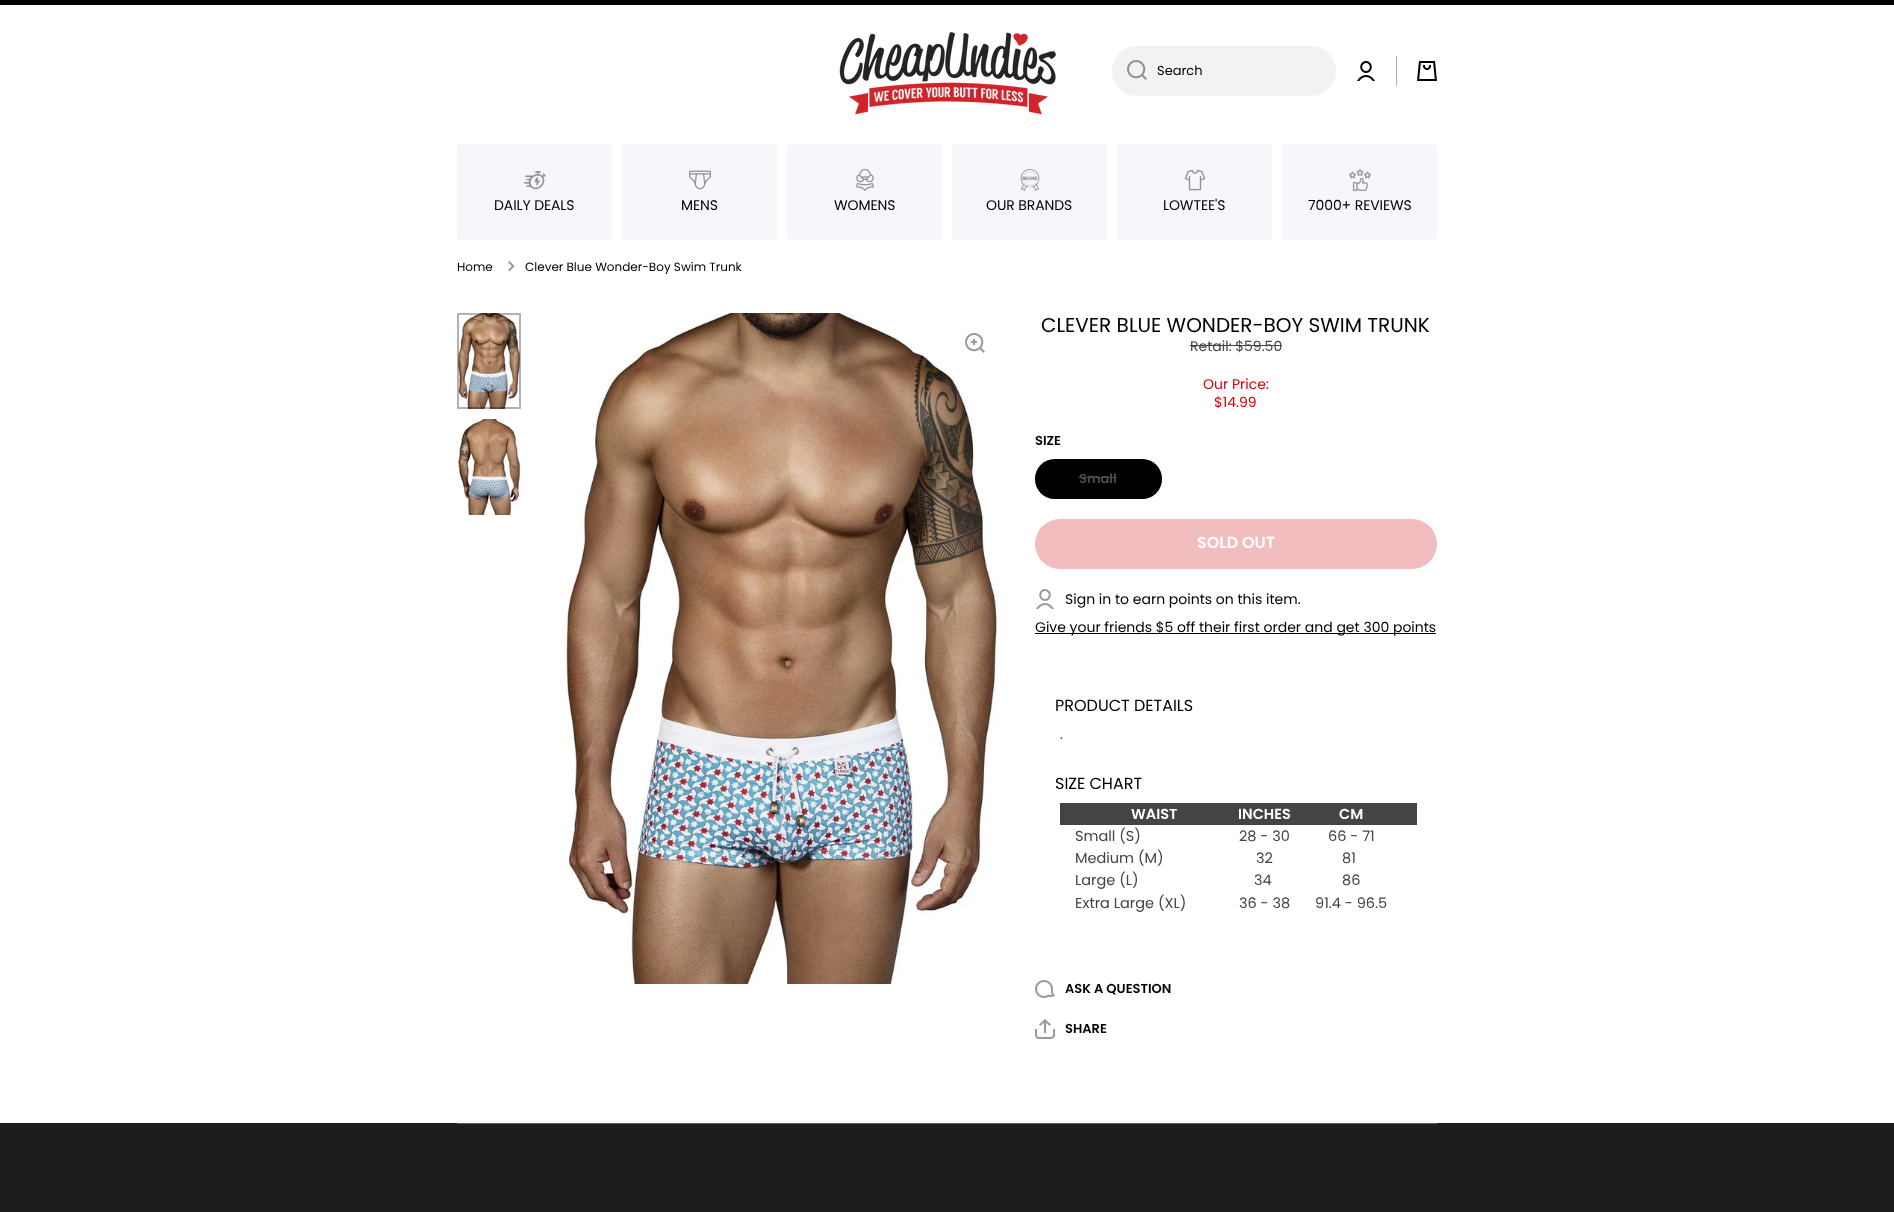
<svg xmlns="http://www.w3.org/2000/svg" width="1894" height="1212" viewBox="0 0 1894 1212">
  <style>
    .t1 { font: 13px Poppins; fill: #000; }
    .t2 { font: 14px Poppins; letter-spacing: -0.1px; fill: #000; }
    .t3 { font: 12px Poppins; fill: #000; }
    .t4 { font: 20px Poppins; fill: #000; }
    .t5 { font: 14px Poppins; fill: #444; }
    .t6 { font: 14px Poppins; fill: #d20404; }
    .t7 { font: 600 13px Poppins; fill: #000; }
    .t8 { font: 600 13px Poppins; fill: #4d4d4d; }
    .t9 { font: 600 16px Poppins; fill: #fff; }
    .t10 { font: 14px Poppins; fill: #000; }
    .t11 { font: 16px Poppins; fill: #000; }
    .t12 { font: 600 14.5px Poppins; fill: #fff; }
    .t13 { font: 14.5px Poppins; fill: #444; }
  </style>
  <rect width="100%" height="100%" fill="#fff"/>
  <rect x="0" y="0" width="1894" height="5" fill="#000"/>
  <image x="839" y="32" width="217" height="83" href="images/1.png"/>
  <rect x="1112" y="46" width="224" height="50" rx="25" fill="#f2f2f2"/>
  <image x="1127" y="60" width="20" height="20" href="images/2.png"/>
  <text x="1157" y="75" class="t1">Search</text>
  <image x="1357" y="61" width="18" height="20" href="images/3.png"/>
  <rect x="1396" y="56" width="1" height="30" fill="#b3b3b3"/>
  <image x="1417" y="61" width="20" height="20" href="images/4.png"/>
  <rect x="457" y="144" width="155" height="96" rx="3" fill="#f6f7fa"/>
  <image x="524" y="171" width="22" height="19" href="images/5.png"/>
  <text x="494" y="210" class="t2">DAILY DEALS</text>
  <rect x="622" y="144" width="155" height="96" rx="3" fill="#f6f7fa"/>
  <image x="689" y="170" width="22" height="20" href="images/6.png"/>
  <text x="681" y="210" class="t2">MENS</text>
  <rect x="787" y="144" width="155" height="96" rx="3" fill="#f6f7fa"/>
  <image x="856" y="169" width="18" height="22" href="images/7.png"/>
  <text x="834" y="210" class="t2">WOMENS</text>
  <rect x="952" y="144" width="155" height="96" rx="3" fill="#f6f7fa"/>
  <image x="1020" y="169" width="20" height="22" href="images/8.png"/>
  <text x="986" y="210" class="t2">OUR BRANDS</text>
  <rect x="1117" y="144" width="155" height="96" rx="3" fill="#f6f7fa"/>
  <image x="1184" y="169" width="22" height="22" href="images/9.png"/>
  <text x="1163" y="210" class="t2">LOWTEE'S</text>
  <rect x="1282" y="144" width="155" height="96" rx="3" fill="#f6f7fa"/>
  <image x="1349" y="169" width="22" height="22" href="images/10.png"/>
  <text x="1308" y="210" class="t2">7000+ REVIEWS</text>
  <text x="457" y="271" class="t3">Home</text>
  <image x="508" y="261" width="7" height="11" href="images/11.png"/>
  <text x="525" y="271" class="t3">Clever Blue Wonder-Boy Swim Trunk</text>
  <image x="457" y="313" width="64" height="96" href="images/12.png"/>
  <rect x="458" y="314" width="62" height="94" fill="none" stroke="#0000004d" stroke-width="2"/>
  <image x="457" y="419" width="64" height="96" href="images/13.png"/>
  <image x="563" y="313" width="436" height="671" href="images/14.png"/>
  <image x="965" y="333" width="20" height="20" href="images/15.png"/>
  <text x="1041" y="332" class="t4">CLEVER BLUE WONDER-BOY SWIM TRUNK</text>
  <text x="1190" y="351" class="t5">Retail: $59.50</text>
  <rect x="1190" y="345" width="92" height="1" fill="#444"/>
  <text x="1203" y="389" class="t6">Our Price:</text>
  <text x="1214" y="407" class="t6">$14.99</text>
  <text x="1035" y="445" class="t7">SIZE</text>
  <rect x="1035" y="459" width="127" height="40" rx="20" fill="#000"/>
  <rect x="1036" y="460" width="125" height="38" rx="19" fill="none" stroke="#0000004d" stroke-width="2"/>
  <text x="1079" y="483" class="t8">Small</text>
  <rect x="1079" y="477" width="38" height="1" fill="#4d4d4d"/>
  <rect x="1035" y="519" width="402" height="50" rx="25" fill="#f2bdbf"/>
  <text x="1197" y="548" class="t9">SOLD OUT</text>
  <image x="1036" y="589" width="18" height="20" href="images/16.png"/>
  <text x="1065" y="604" class="t10">Sign in to earn points on this item.</text>
  <rect x="1035" y="633" width="401" height="1" fill="#000"/>
  <text x="1035" y="632" class="t10">Give your friends $5 off their first order and get 300 points</text>
  <text x="1055" y="711" class="t11">PRODUCT DETAILS</text>
  <text x="1060" y="739" class="t5">.</text>
  <text x="1055" y="789" class="t11">SIZE CHART</text>
  <rect x="1060" y="803" width="357" height="22" fill="#444"/>
  <text x="1131" y="819" class="t12">WAIST</text>
  <text x="1238" y="819" class="t12">INCHES</text>
  <text x="1339" y="819" class="t12">CM</text>
  <text x="1075" y="841" class="t13">Small (S)</text>
  <text x="1239" y="841" class="t13">28 - 30</text>
  <text x="1328" y="841" class="t13">66 - 71</text>
  <text x="1075" y="863" class="t13">Medium (M)</text>
  <text x="1256" y="863" class="t13">32</text>
  <text x="1342" y="863" class="t13">81</text>
  <text x="1075" y="885" class="t13">Large (L)</text>
  <text x="1254" y="885" class="t13">34</text>
  <text x="1342" y="885" class="t13">86</text>
  <text x="1075" y="908" class="t13">Extra Large (XL)</text>
  <text x="1239" y="908" class="t13">36 - 38</text>
  <text x="1315" y="908" class="t13">91.4 - 96.5</text>
  <image x="1035" y="980" width="20" height="18" href="images/17.png"/>
  <text x="1065" y="993" class="t7">ASK A QUESTION</text>
  <image x="1035" y="1019" width="20" height="20" href="images/18.png"/>
  <text x="1065" y="1033" class="t7">SHARE</text>
  <rect x="0" y="1123" width="1894" height="89" fill="#1d1d1d"/>
  <rect x="457" y="1123" width="980" height="1" fill="#616161"/>
</svg>
